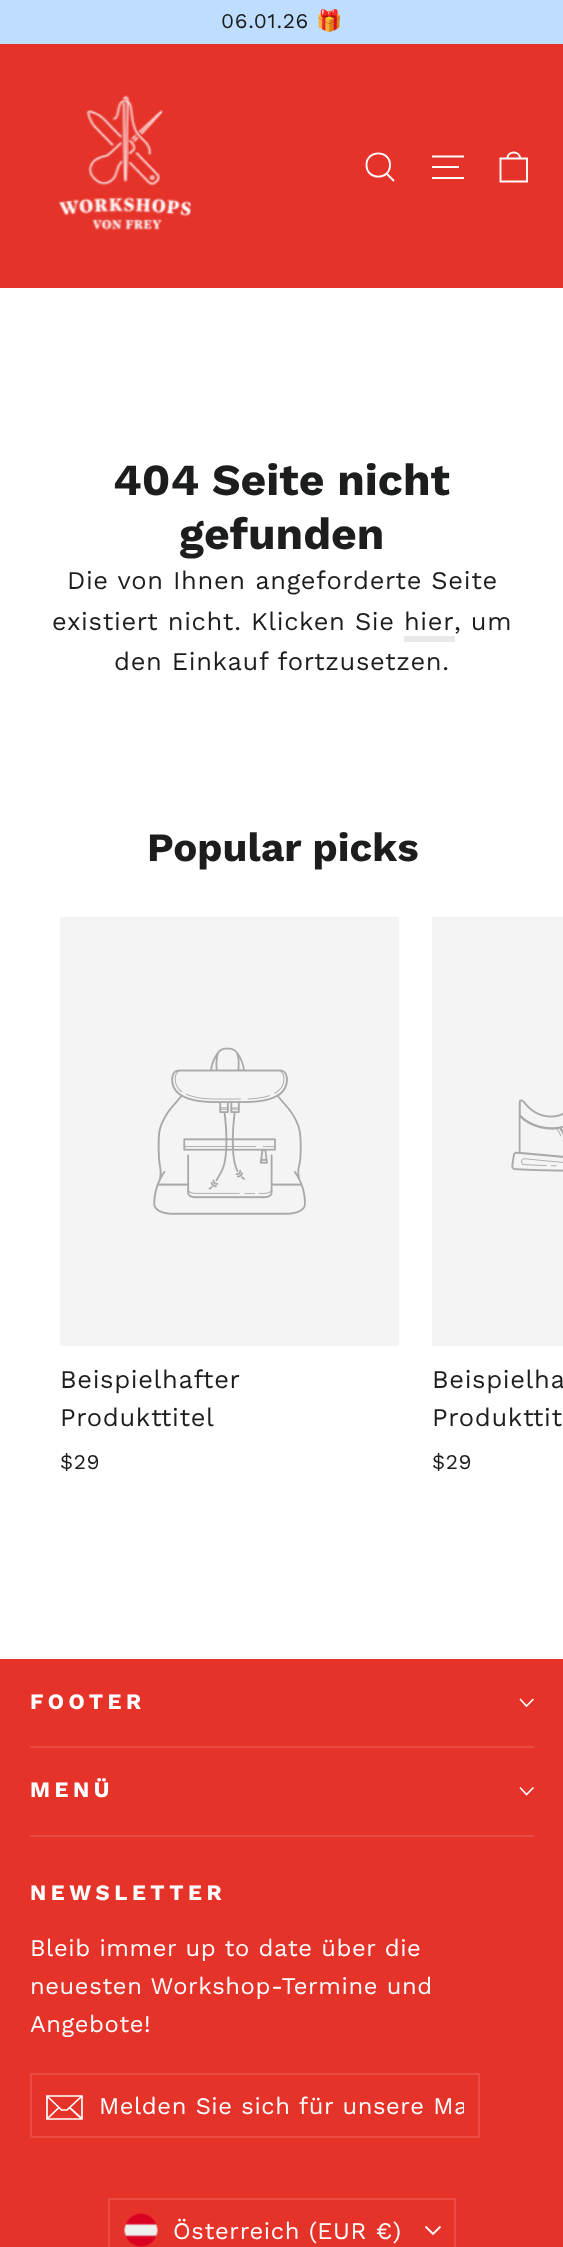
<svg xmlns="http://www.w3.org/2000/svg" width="563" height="2247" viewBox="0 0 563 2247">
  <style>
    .t1 { font: 21px Work Sans; letter-spacing: 0.65px; fill: #1c1d1d; }
    .t2 { font: 21px Noto Color Emoji; letter-spacing: 0.65px; fill: #1c1d1d; }
    .t3 { font: bold 44.5px Work Sans; fill: #1c1d1d; }
    .t4 { font: 25.5px Work Sans; letter-spacing: 0.65px; fill: #1c1d1d; }
    .t5 { font: bold 40.25px Work Sans; fill: #1c1d1d; }
    .t6 { font: bold 22px Work Sans; letter-spacing: 4.5px; fill: #fff; }
    .t7 { font: 23.75px Work Sans; letter-spacing: 0.6px; fill: #fff; }
  </style>
  <defs>
    <clipPath id="clip1"><rect x="99" y="2091" width="365" height="29"/></clipPath>
  </defs>
  <rect width="100%" height="100%" fill="#fff"/>
  <rect x="0" y="0" width="563" height="44" fill="#bfddff"/>
  <text x="221" y="28" class="t1">06.01.26</text>
  <text x="316" y="28" class="t2">🎁</text>
  <rect x="0" y="44" width="563" height="244" fill="#e6332a"/>
  <image x="58" y="95" width="133" height="136" href="images/1.png"/>
  <path d="M390 165C390 180.5 366.5 180.5 366.5 165C366.5 149.5 390 149.5 390 165ZM394 181L386.5 173.5" fill="none" stroke="#fff" stroke-width="1.9"/>
  <path d="M432 156.5H464M432 167H459M432 178H464" fill="none" stroke="#fff" stroke-width="1.9"/>
  <path d="M500.5 158.5H527V181.5H500.5ZM507.5 158.5C507.5 150.5 520 150.5 520 158.5" fill="none" stroke="#fff" stroke-width="1.9"/>
  <text x="113" y="495" class="t3">404 Seite nicht</text>
  <text x="179" y="549" class="t3">gefunden</text>
  <text x="67" y="589" class="t4">Die von Ihnen angeforderte Seite</text>
  <text x="52" y="630" class="t4">existiert nicht. Klicken Sie hier</text>
  <text x="454" y="630" class="t4">, um</text>
  <rect x="404" y="636" width="51" height="6" fill="#e8e8e8"/>
  <text x="114" y="670" class="t4">den Einkauf fortzusetzen.</text>
  <text x="147" y="861" class="t5">Popular picks</text>
  <rect x="60" y="917" width="339" height="429" fill="#f4f4f4"/>
  <image x="153" y="1047" width="153" height="168" href="images/2.png"/>
  <text x="60" y="1388" class="t4">Beispielhafter</text>
  <text x="60" y="1426" class="t4">Produkttitel</text>
  <text x="60" y="1469" class="t1">$29</text>
  <rect x="432" y="917" width="131" height="429" fill="#f4f4f4"/>
  <image x="511" y="1099" width="52" height="73" href="images/3.png"/>
  <text x="432" y="1388" class="t4">Beispielha</text>
  <text x="432" y="1426" class="t4">Produkttit</text>
  <text x="432" y="1469" class="t1">$29</text>
  <rect x="0" y="1659" width="563" height="588" fill="#e6332a"/>
  <text x="30" y="1709" class="t6">FOOTER</text>
  <path d="M520 1699L526.5 1706L533.5 1699" fill="none" stroke="#fff" stroke-width="1.6"/>
  <rect x="30" y="1746" width="504" height="2" fill="#e94b44"/>
  <text x="30" y="1797" class="t6">MENÜ</text>
  <path d="M520 1787.5L526.5 1794.5L533.5 1787.5" fill="none" stroke="#fff" stroke-width="1.6"/>
  <rect x="30" y="1835" width="504" height="2" fill="#e94b44"/>
  <text x="30" y="1900" class="t6">NEWSLETTER</text>
  <text x="30" y="1956" class="t7">Bleib immer up to date über die</text>
  <text x="30" y="1994" class="t7">neuesten Workshop-Termine und</text>
  <text x="30" y="2032" class="t7">Angebote!</text>
  <rect x="31" y="2074" width="448" height="63" fill="none" stroke="#e94b44" stroke-width="2"/>
  <path d="M82 2119H47V2096H82ZM47 2096L61.5 2110H67L82 2096M59 2107.5L47.5 2118.5M81.5 2118.5L69.5 2107.5" fill="none" stroke="#fff" stroke-width="1.7"/>
  <g clip-path="url(#clip1)">
    <text x="99" y="2114" class="t7">Melden Sie sich für unsere Ma</text>
  </g>
  <rect x="109" y="2199" width="346" height="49" fill="none" stroke="#e94b44" stroke-width="2"/>
  <image x="124" y="2213" width="34" height="34" href="images/4.png"/>
  <text x="173" y="2239" class="t7">Österreich (EUR €)</text>
  <path d="M425.5 2226.5L433 2234L440.5 2226.5" fill="none" stroke="#fff" stroke-width="1.8"/>
</svg>
